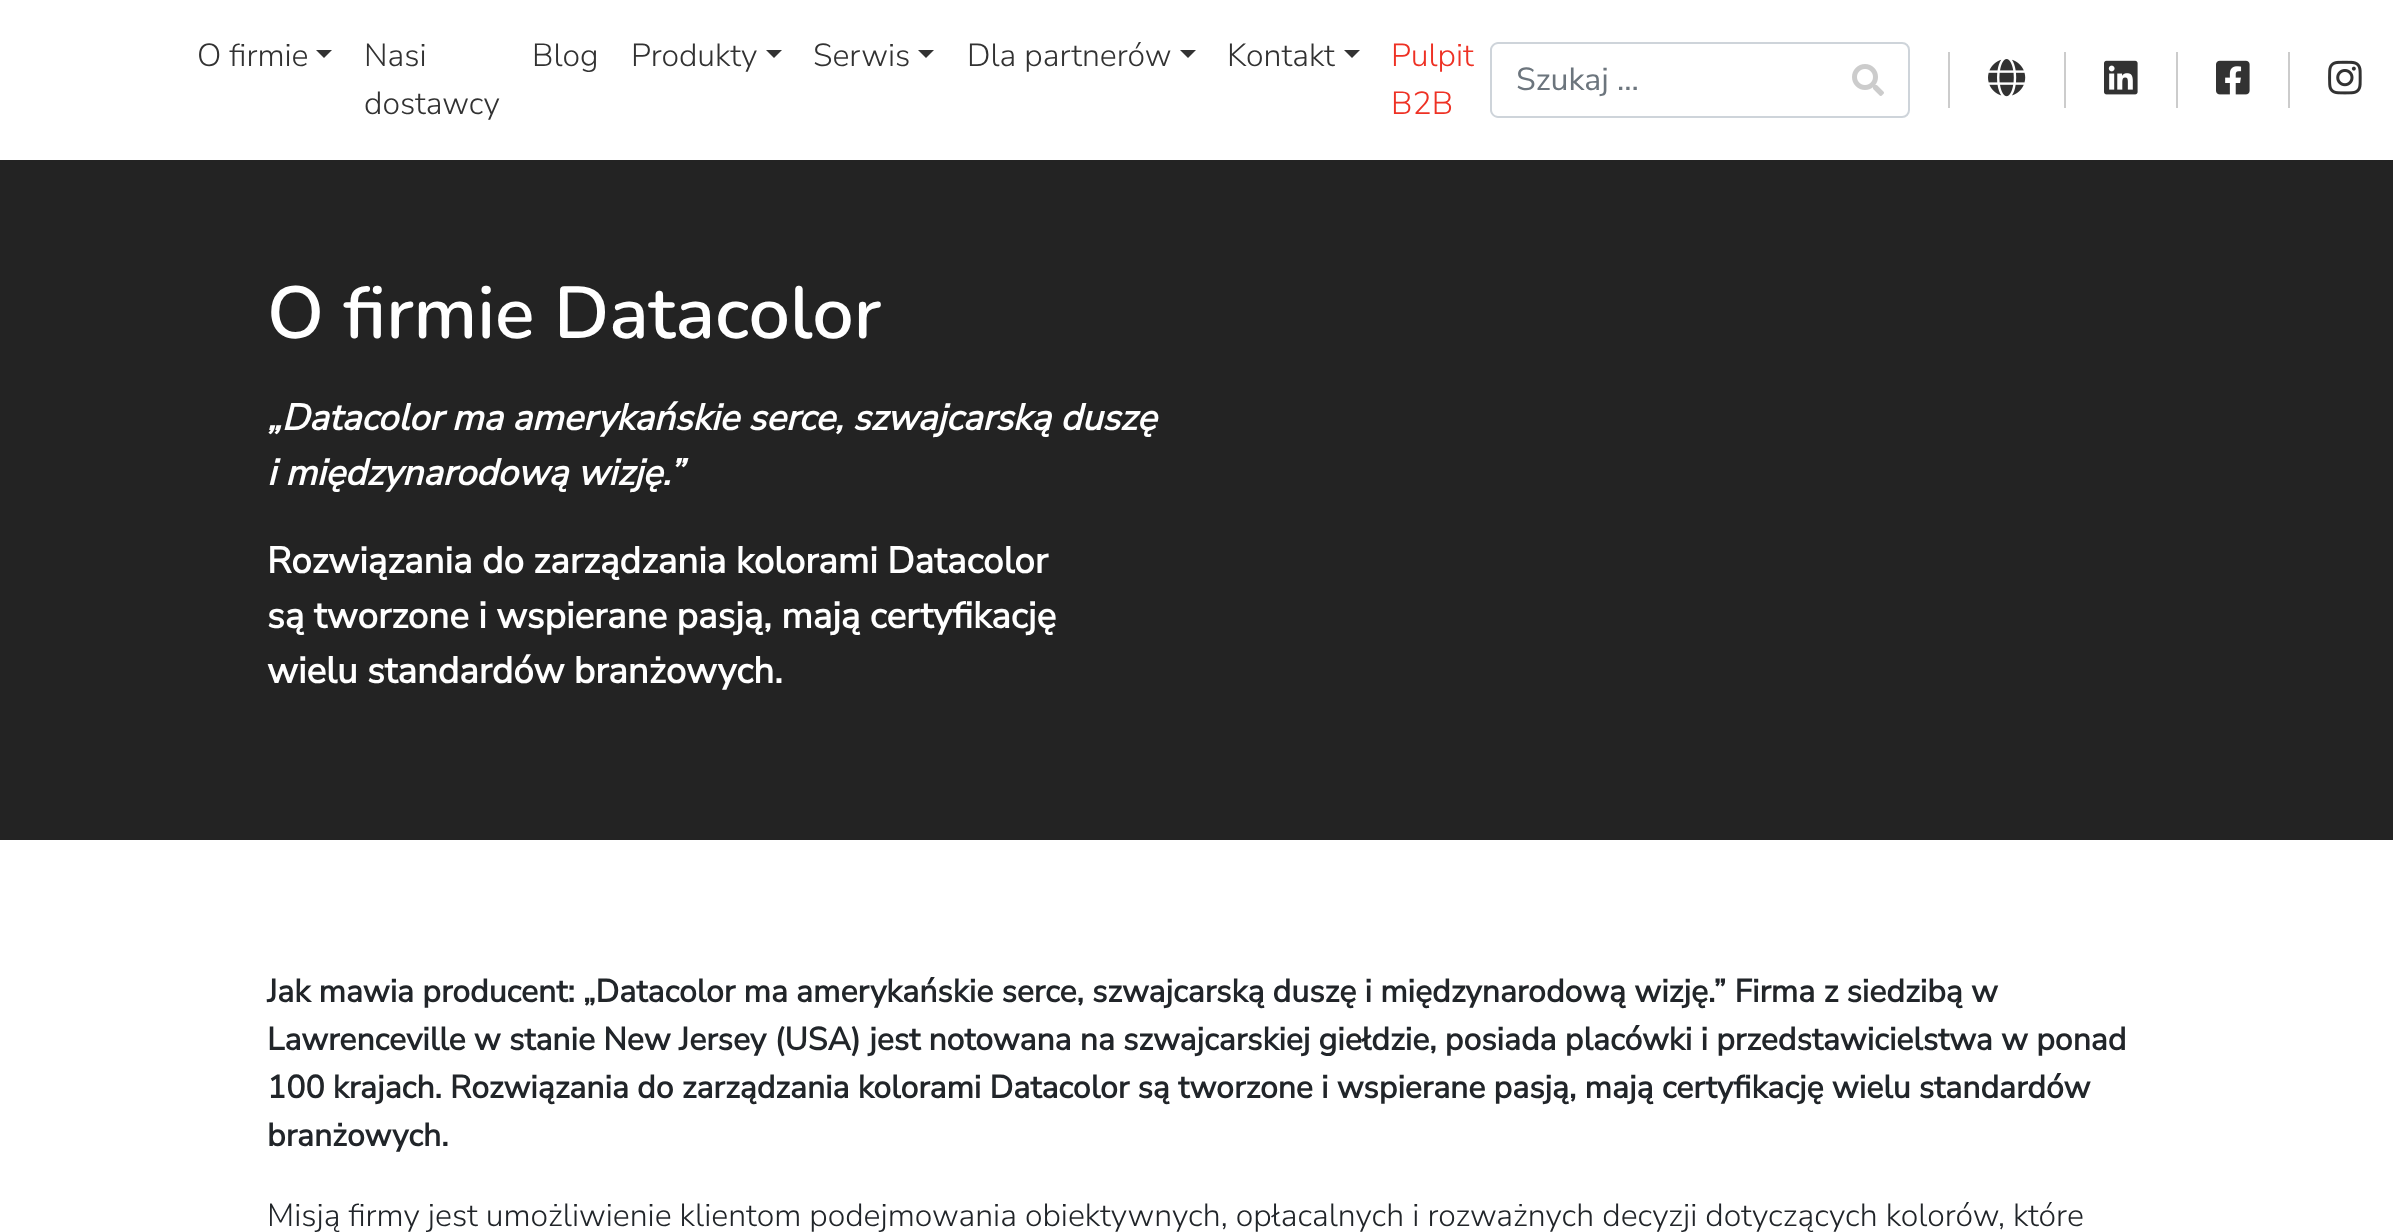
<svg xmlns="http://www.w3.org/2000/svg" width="2393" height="1232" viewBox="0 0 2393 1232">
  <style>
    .t1 { font: 300 32px Nunito Sans; fill: #323232; }
    .t2 { font: 300 32px Nunito Sans; fill: #ee3124; }
    .t3 { font: 32px Nunito Sans; fill: #6c757d; }
    .t4 { font: 600 73.5px Nunito; fill: #fff; }
    .t5 { font: italic bold 36.8px Nunito Sans; fill: #fff; }
    .t6 { font: bold 36.8px Nunito Sans; fill: #fff; }
    .t7 { font: bold 32px Nunito Sans; fill: #212529; }
    .t8 { font: 300 32px Nunito Sans; fill: #212529; }
  </style>
  <rect width="100%" height="100%" fill="#fff"/>
  <text x="197" y="66" class="t1">O firmie</text>
  <path d="M316 50H332L324 58Z" fill="#323232"/>
  <text x="364" y="66" class="t1">Nasi</text>
  <text x="364" y="114" class="t1">dostawcy</text>
  <text x="532" y="66" class="t1">Blog</text>
  <text x="631" y="66" class="t1">Produkty</text>
  <path d="M766 50H782L774 58Z" fill="#323232"/>
  <text x="813" y="66" class="t1">Serwis</text>
  <path d="M918 50H934L926 58Z" fill="#323232"/>
  <text x="967" y="66" class="t1">Dla partnerów</text>
  <path d="M1180 50H1196L1188 58Z" fill="#323232"/>
  <text x="1227" y="66" class="t1">Kontakt</text>
  <path d="M1344 50H1360L1352 58Z" fill="#323232"/>
  <text x="1391" y="66" class="t2">Pulpit</text>
  <text x="1391" y="114" class="t2">B2B</text>
  <path d="M1827 43H1902C1906 43 1909 46 1909 50V110C1909 114 1906 117 1902 117H1827Z" fill="none" stroke="#ced4da" stroke-width="2"/>
  <path d="M1498 44H1828V116H1498C1494.5 116 1492 113.5 1492 110V50C1492 46.5 1494.5 44 1498 44Z" fill="#fff"/>
  <path d="M1498 42H1828V118H1498C1494 118 1490 114 1490 110V50C1490 46 1494 42 1498 42ZM1498 44H1828V116H1498C1495 116 1492 113 1492 110V50C1492 47 1495 44 1498 44Z" fill="#ced4da" fill-rule="evenodd"/>
  <text x="1516" y="90" class="t3">Szukaj ...</text>
  <image x="1852" y="64" width="32" height="32" href="images/1.png"/>
  <rect x="1948" y="52" width="2" height="56" fill="#ccc"/>
  <image x="1988" y="59" width="38" height="38" href="images/2.png"/>
  <rect x="2064" y="52" width="2" height="56" fill="#ccc"/>
  <image x="2104" y="60" width="34" height="35" href="images/3.png"/>
  <rect x="2176" y="52" width="2" height="56" fill="#ccc"/>
  <image x="2216" y="60" width="34" height="35" href="images/4.png"/>
  <rect x="2288" y="52" width="2" height="56" fill="#ccc"/>
  <image x="2328" y="60" width="34" height="35" href="images/5.png"/>
  <rect x="0" y="160" width="2393" height="680" fill="#232323"/>
  <text x="267" y="338" class="t4">O firmie Datacolor</text>
  <text x="267" y="430" class="t5">„Datacolor ma amerykańskie serce, szwajcarską duszę</text>
  <text x="267" y="485" class="t5">i międzynarodową wizję.”</text>
  <text x="267" y="573" class="t6">Rozwiązania do zarządzania kolorami Datacolor</text>
  <text x="267" y="628" class="t6">są tworzone i wspierane pasją, mają certyfikację</text>
  <text x="267" y="683" class="t6">wielu standardów branżowych.</text>
  <text x="267" y="1002" class="t7">Jak mawia producent: „Datacolor ma amerykańskie serce, szwajcarską duszę i międzynarodową wizję.” Firma z siedzibą w</text>
  <text x="267" y="1050" class="t7">Lawrenceville w stanie New Jersey (USA) jest notowana na szwajcarskiej giełdzie, posiada placówki i przedstawicielstwa w ponad</text>
  <text x="267" y="1098" class="t7">100 krajach. Rozwiązania do zarządzania kolorami Datacolor są tworzone i wspierane pasją, mają certyfikację wielu standardów</text>
  <text x="267" y="1146" class="t7">branżowych.</text>
  <text x="267" y="1226" class="t8">Misją firmy jest umożliwienie klientom podejmowania obiektywnych, opłacalnych i rozważnych decyzji dotyczących kolorów, które</text>
</svg>
